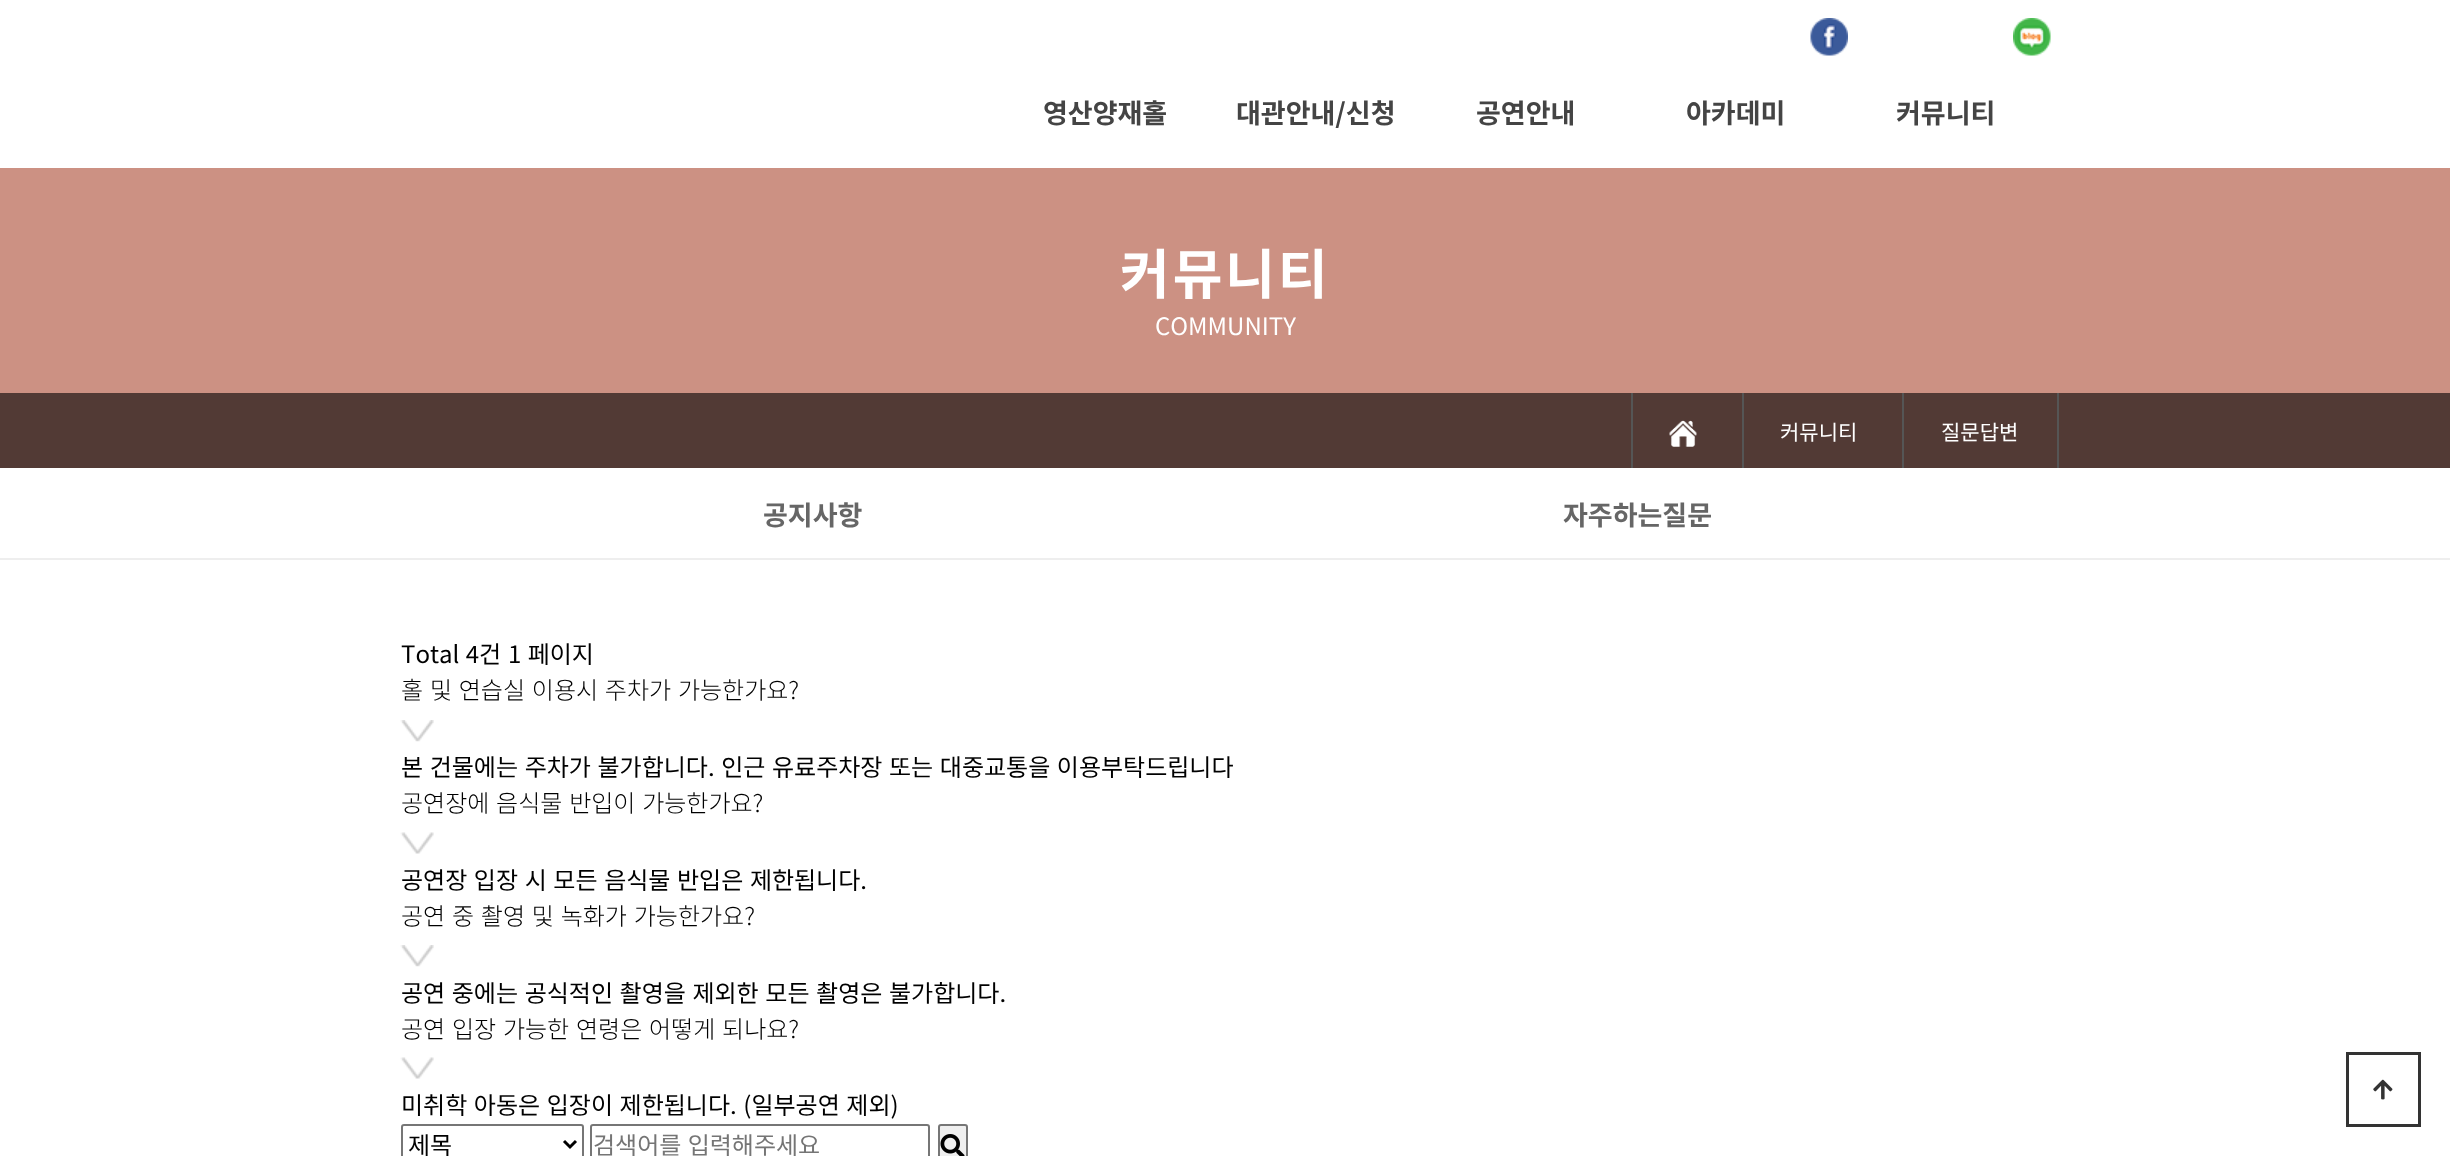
<svg xmlns="http://www.w3.org/2000/svg" width="2450" height="1156" viewBox="0 0 2450 1156">
  <style>*{font-kerning:none!important;font-variant-ligatures:none!important}</style>
  <style>
    .t1 { font: bold 27px Noto Sans KR; fill: #444; }
    .t2 { font: bold 54px Noto Sans KR; letter-spacing: 3px; fill: #fff; }
    .t3 { font: 24px Noto Sans KR; fill: #fff; }
    .t4 { font: 21px Noto Sans KR; fill: #fff; }
    .t5 { font: bold 27px Noto Sans KR; fill: #666; }
    .t6 { font: 24px Noto Sans KR; fill: #000; }
    .t7 { font: 300 24px Noto Sans KR; fill: #000; }
    .t8 { font: 24px Noto Sans KR; fill: #757575; }
  </style>
  <rect width="100%" height="100%" fill="#fff"/>
  <image x="1810" y="18" width="38" height="38" href="images/1.png"/>
  <image x="2013" y="18" width="38" height="38" href="images/2.png"/>
  <text x="1043" y="123" class="t1">영산양재홀</text>
  <text x="1236" y="123" class="t1">대관안내/신청</text>
  <text x="1476" y="123" class="t1">공연안내</text>
  <text x="1686" y="123" class="t1">아카데미</text>
  <text x="1896" y="123" class="t1">커뮤니티</text>
  <rect x="0" y="168" width="2450" height="225" fill="#cc9183"/>
  <text x="1120" y="294" class="t2">커뮤니티</text>
  <text x="1155" y="335" class="t3">COMMUNITY</text>
  <rect x="0" y="393" width="2450" height="75" fill="#523a35"/>
  <rect x="2057" y="393" width="2" height="75" fill="#555"/>
  <rect x="1631" y="393" width="2" height="75" fill="#555"/>
  <image x="1669" y="420" width="28" height="27" href="images/3.png"/>
  <rect x="1742" y="393" width="2" height="75" fill="#555"/>
  <text x="1780" y="440" class="t4">커뮤니티</text>
  <rect x="1902" y="393" width="2" height="75" fill="#555"/>
  <text x="1941" y="440" class="t4">질문답변</text>
  <rect x="0" y="558" width="2450" height="2" fill="#eee"/>
  <text x="763" y="525" class="t5">공지사항</text>
  <text x="1563" y="525" class="t5">자주하는질문</text>
  <text x="401" y="663" word-spacing="1" class="t6">Total 4건</text>
  <text x="508" y="663" word-spacing="1" class="t6">1 페이지</text>
  <text x="401" y="699" word-spacing="1.5" class="t7">홀 및 연습실 이용시 주차가 가능한가요?</text>
  <image x="400" y="720" width="34" height="22" href="images/4.png"/>
  <text x="401" y="776" word-spacing="1.25" class="t6">본 건물에는 주차가 불가합니다. 인근 유료주차장 또는 대중교통을 이용부탁드립니다</text>
  <text x="401" y="812" word-spacing="1.5" class="t7">공연장에 음식물 반입이 가능한가요?</text>
  <image x="400" y="832" width="34" height="22" href="images/5.png"/>
  <text x="401" y="889" word-spacing="1.25" class="t6">공연장 입장 시 모든 음식물 반입은 제한됩니다.</text>
  <text x="401" y="925" word-spacing="1.5" class="t7">공연 중 촬영 및 녹화가 가능한가요?</text>
  <image x="400" y="945" width="34" height="22" href="images/4.png"/>
  <text x="401" y="1002" word-spacing="1.25" class="t6">공연 중에는 공식적인 촬영을 제외한 모든 촬영은 불가합니다.</text>
  <text x="401" y="1038" word-spacing="1.5" class="t7">공연 입장 가능한 연령은 어떻게 되나요?</text>
  <image x="400" y="1057" width="34" height="22" href="images/5.png"/>
  <text x="401" y="1114" word-spacing="1.25" class="t6">미취학 아동은 입장이 제한됩니다. (일부공연 제외)</text>
  <rect x="402" y="1125" width="181" height="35" rx="2" fill="none" stroke="#767676" stroke-width="2"/>
  <path d="M564 1141L570 1147L576 1141" fill="none" stroke="#000" stroke-width="3"/>
  <text x="408" y="1154" class="t6">제목</text>
  <rect x="591" y="1125" width="338" height="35" rx="2" fill="none" stroke="#767676" stroke-width="2"/>
  <text x="593" y="1154" word-spacing="1" class="t8">검색어를 입력해주세요</text>
  <rect x="939" y="1125" width="28" height="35" rx="2" fill="#efefef" stroke="#767676" stroke-width="2"/>
  <image x="940" y="1134" width="25" height="22" href="images/6.png"/>
  <rect x="2347.5" y="1053.5" width="72" height="72" fill="none" stroke="#333" stroke-width="3"/>
  <image x="2373" y="1079" width="20" height="21" href="images/7.png"/>
</svg>
